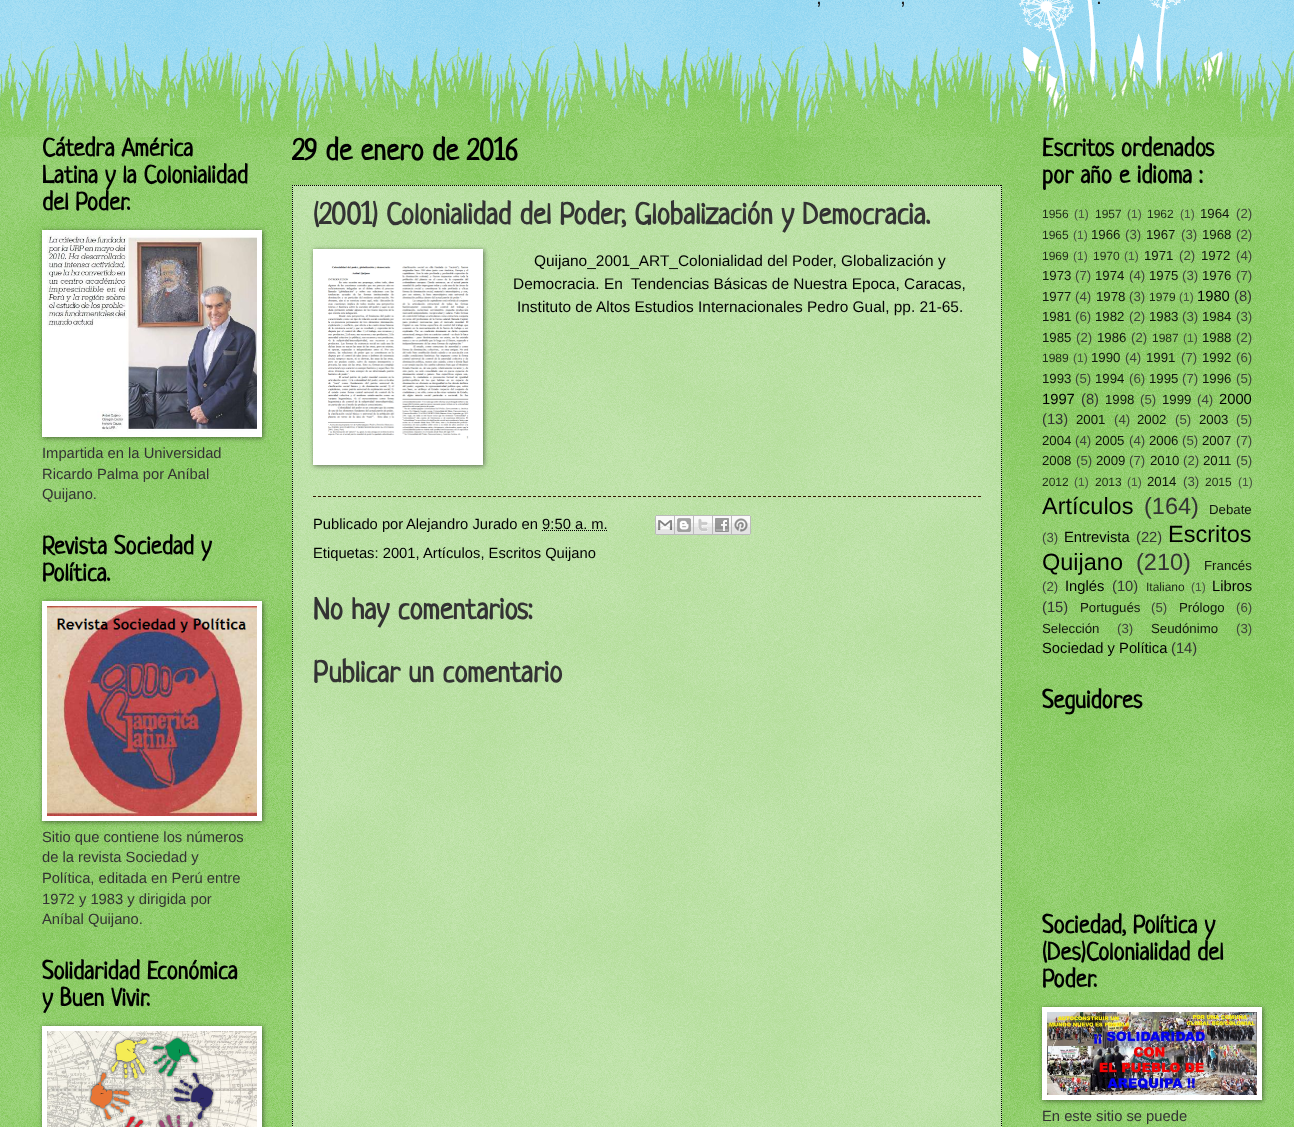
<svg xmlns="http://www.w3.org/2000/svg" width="1294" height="1127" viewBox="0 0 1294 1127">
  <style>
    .t1 { font: 21px Liberation Sans; fill: #191919; }
    .t2 { font: bold 25px Neucha; fill: #000; }
    .t3 { font: 14.75px Liberation Sans; fill: #333; }
    .t4 { font: bold 30px Neucha; fill: #000; }
    .t5 { font: bold 30px Neucha; fill: #333; }
    .t6 { font: 15.45px Liberation Sans; fill: #000; }
    .t7 { font: 14.75px Liberation Sans; fill: #000; }
    .t8 { font: 12px Liberation Sans; fill: #1d2916; }
    .t9 { font: 12px Liberation Sans; fill: #46523f; }
    .t10 { font: 13.25px Liberation Sans; fill: #0f150b; }
    .t11 { font: 13.25px Liberation Sans; fill: #3d4339; }
    .t12 { font: 23.5px Liberation Sans; fill: #000; }
    .t13 { font: 23.5px Liberation Sans; fill: #333; }
  </style>
  <rect width="100%" height="100%" fill="#7ce"/>
  <image x="0" y="0" width="1294" height="132" href="images/1.png"/>
  <text x="816" y="4" class="t1">,</text>
  <text x="900" y="4" class="t1">,</text>
  <text x="1096" y="4" class="t1">.</text>
  <rect x="0" y="137" width="1294" height="990" fill="#6b3"/>
  <image x="0" y="137" width="1294" height="990" href="images/2.png"/>
  <image x="1014" y="0" width="250" height="132" href="images/3.png"/>
  <image x="0" y="41" width="1294" height="96" href="images/4.png"/>
  <text x="42" y="156" class="t2">Cátedra América</text>
  <text x="42" y="183" class="t2">Latina y la Colonialidad</text>
  <text x="42" y="210" class="t2">del Poder.</text>
  <rect x="43" y="231" width="220" height="207" fill="#00000080" filter="blur(2.5px)"/>
  <rect x="42" y="230" width="220" height="207" fill="#fff"/>
  <image x="47" y="235" width="210" height="197" href="images/5.png"/>
  <text x="42" y="458" class="t3">Impartida en la Universidad</text>
  <text x="42" y="479" class="t3">Ricardo Palma por Aníbal</text>
  <text x="42" y="499" class="t3">Quijano.</text>
  <text x="42" y="554" class="t2">Revista Sociedad y</text>
  <text x="42" y="581" class="t2">Política.</text>
  <rect x="43" y="602" width="220" height="220" fill="#00000080" filter="blur(2.5px)"/>
  <rect x="42" y="601" width="220" height="220" fill="#fff"/>
  <image x="47" y="606" width="210" height="210" href="images/6.png"/>
  <text x="42" y="842" class="t3">Sitio que contiene los números</text>
  <text x="42" y="862" class="t3">de la revista Sociedad y</text>
  <text x="42" y="883" class="t3">Política, editada en Perú entre</text>
  <text x="42" y="904" class="t3">1972 y 1983 y dirigida por</text>
  <text x="42" y="924" class="t3">Aníbal Quijano.</text>
  <text x="42" y="979" class="t2">Solidaridad Económica</text>
  <text x="42" y="1006" class="t2">y Buen Vivir.</text>
  <rect x="43" y="1027" width="220" height="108" fill="#00000080" filter="blur(2.5px)"/>
  <rect x="42" y="1026" width="220" height="101" fill="#fff"/>
  <image x="47" y="1031" width="210" height="96" href="images/7.png"/>
  <text x="292" y="160" class="t4">29 de enero de 2016</text>
  <rect x="292" y="185" width="710" height="942" fill="#ffffff66"/>
  <path d="M292 185.5H1002" fill="none" stroke="#000" stroke-dasharray="1 1"/>
  <path d="M1001.5 185V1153" fill="none" stroke="#000" stroke-dasharray="1 1"/>
  <path d="M292.5 185V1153" fill="none" stroke="#000" stroke-dasharray="1 1"/>
  <text x="313" y="224" class="t5">(2001) Colonialidad del Poder, Globalización y Democracia.</text>
  <rect x="314" y="250" width="170" height="216" fill="#00000080" filter="blur(2.5px)"/>
  <rect x="313" y="249" width="170" height="216" fill="#fff"/>
  <image x="328" y="266" width="141" height="173" href="images/8.png"/>
  <text x="534" y="266" class="t6">Quijano_2001_ART_Colonialidad del Poder, Globalización y</text>
  <text x="513" y="289" class="t6" xml:space="preserve">Democracia. En  Tendencias Básicas de Nuestra Epoca, Caracas,</text>
  <text x="517" y="312" class="t6">Instituto de Altos Estudios Internacionales Pedro Gual, pp. 21-65.</text>
  <path d="M313 496.5H981" fill="none" stroke="#310" stroke-dasharray="3 2"/>
  <text x="313" y="529" class="t7">Publicado por</text>
  <text x="406" y="529" class="t7">Alejandro Jurado en 9:50 a. m.</text>
  <image x="655" y="515" width="20" height="20" href="images/9.png"/>
  <image x="675" y="515" width="19" height="20" href="images/10.png"/>
  <image x="694" y="515" width="19" height="20" href="images/11.png"/>
  <image x="713" y="515" width="19" height="20" href="images/12.png"/>
  <image x="732" y="515" width="19" height="20" href="images/13.png"/>
  <path d="M542 530.5H607.5" fill="none" stroke="#000" stroke-dasharray="1 1"/>
  <text x="313" y="558" class="t7">Etiquetas: 2001,</text>
  <text x="423" y="558" class="t7">Artículos, Escritos Quijano</text>
  <text x="313" y="619" class="t5">No hay comentarios:</text>
  <text x="313" y="682" class="t5">Publicar un comentario</text>
  <text x="1042" y="156" class="t2">Escritos ordenados</text>
  <text x="1042" y="183" class="t2">por año e idioma :</text>
  <text x="1042" y="218" class="t8">1956</text>
  <text x="1074" y="218" class="t9">(1)</text>
  <text x="1095" y="218" class="t8">1957</text>
  <text x="1127" y="218" class="t9">(1)</text>
  <text x="1147" y="218" class="t8">1962</text>
  <text x="1180" y="218" class="t9">(1)</text>
  <text x="1200" y="218" class="t10">1964</text>
  <text x="1236" y="218" class="t11">(2)</text>
  <text x="1042" y="239" class="t8">1965</text>
  <text x="1073" y="239" class="t9">(1)</text>
  <text x="1091" y="239" class="t10">1966</text>
  <text x="1125" y="239" class="t11">(3)</text>
  <text x="1146" y="239" class="t10">1967</text>
  <text x="1181" y="239" class="t11">(3)</text>
  <text x="1202" y="239" class="t10">1968</text>
  <text x="1236" y="239" class="t11">(2)</text>
  <text x="1042" y="260" class="t8">1969</text>
  <text x="1073" y="260" class="t9">(1)</text>
  <text x="1093" y="260" class="t8">1970</text>
  <text x="1124" y="260" class="t9">(1)</text>
  <text x="1144" y="260" class="t10">1971</text>
  <text x="1179" y="260" class="t11">(2)</text>
  <text x="1201" y="260" class="t10">1972</text>
  <text x="1236" y="260" class="t11">(4)</text>
  <text x="1042" y="280" class="t10">1973</text>
  <text x="1075" y="280" class="t11">(7)</text>
  <text x="1095" y="280" class="t10">1974</text>
  <text x="1129" y="280" class="t11">(4)</text>
  <text x="1149" y="280" class="t10">1975</text>
  <text x="1182" y="280" class="t11">(3)</text>
  <text x="1202" y="280" class="t10">1976</text>
  <text x="1236" y="280" class="t11">(7)</text>
  <text x="1042" y="301" class="t10">1977</text>
  <text x="1075" y="301" class="t11">(4)</text>
  <text x="1096" y="301" class="t10">1978</text>
  <text x="1129" y="301" class="t11">(3)</text>
  <text x="1149" y="301" class="t8">1979</text>
  <text x="1179" y="301" class="t9">(1)</text>
  <text x="1197" y="301" class="t7">1980</text>
  <text x="1234" y="301" class="t3">(8)</text>
  <text x="1042" y="321" class="t10">1981</text>
  <text x="1075" y="321" class="t11">(6)</text>
  <text x="1095" y="321" class="t10">1982</text>
  <text x="1129" y="321" class="t11">(2)</text>
  <text x="1149" y="321" class="t10">1983</text>
  <text x="1182" y="321" class="t11">(3)</text>
  <text x="1202" y="321" class="t10">1984</text>
  <text x="1236" y="321" class="t11">(3)</text>
  <text x="1042" y="342" class="t10">1985</text>
  <text x="1076" y="342" class="t11">(2)</text>
  <text x="1097" y="342" class="t10">1986</text>
  <text x="1131" y="342" class="t11">(2)</text>
  <text x="1152" y="342" class="t8">1987</text>
  <text x="1183" y="342" class="t9">(1)</text>
  <text x="1202" y="342" class="t10">1988</text>
  <text x="1236" y="342" class="t11">(2)</text>
  <text x="1042" y="362" class="t8">1989</text>
  <text x="1073" y="362" class="t9">(1)</text>
  <text x="1091" y="362" class="t10">1990</text>
  <text x="1125" y="362" class="t11">(4)</text>
  <text x="1146" y="362" class="t10">1991</text>
  <text x="1181" y="362" class="t11">(7)</text>
  <text x="1202" y="362" class="t10">1992</text>
  <text x="1236" y="362" class="t11">(6)</text>
  <text x="1042" y="383" class="t10">1993</text>
  <text x="1075" y="383" class="t11">(5)</text>
  <text x="1095" y="383" class="t10">1994</text>
  <text x="1129" y="383" class="t11">(6)</text>
  <text x="1149" y="383" class="t10">1995</text>
  <text x="1182" y="383" class="t11">(7)</text>
  <text x="1202" y="383" class="t10">1996</text>
  <text x="1236" y="383" class="t11">(5)</text>
  <text x="1042" y="404" class="t7">1997</text>
  <text x="1081" y="404" class="t3">(8)</text>
  <text x="1105" y="404" class="t10">1998</text>
  <text x="1140" y="404" class="t11">(5)</text>
  <text x="1162" y="404" class="t10">1999</text>
  <text x="1197" y="404" class="t11">(4)</text>
  <text x="1219" y="404" class="t7">2000</text>
  <text x="1042" y="424" class="t3">(13)</text>
  <text x="1076" y="424" class="t10">2001</text>
  <text x="1114" y="424" class="t11">(4)</text>
  <text x="1137" y="424" class="t10">2002</text>
  <text x="1175" y="424" class="t11">(5)</text>
  <text x="1199" y="424" class="t10">2003</text>
  <text x="1236" y="424" class="t11">(5)</text>
  <text x="1042" y="445" class="t10">2004</text>
  <text x="1075" y="445" class="t11">(4)</text>
  <text x="1095" y="445" class="t10">2005</text>
  <text x="1129" y="445" class="t11">(4)</text>
  <text x="1149" y="445" class="t10">2006</text>
  <text x="1182" y="445" class="t11">(5)</text>
  <text x="1202" y="445" class="t10">2007</text>
  <text x="1236" y="445" class="t11">(7)</text>
  <text x="1042" y="465" class="t10">2008</text>
  <text x="1076" y="465" class="t11">(5)</text>
  <text x="1096" y="465" class="t10">2009</text>
  <text x="1129" y="465" class="t11">(7)</text>
  <text x="1150" y="465" class="t10">2010</text>
  <text x="1183" y="465" class="t11">(2)</text>
  <text x="1203" y="465" class="t10">2011</text>
  <text x="1236" y="465" class="t11">(5)</text>
  <text x="1042" y="486" class="t8">2012</text>
  <text x="1074" y="486" class="t9">(1)</text>
  <text x="1095" y="486" class="t8">2013</text>
  <text x="1127" y="486" class="t9">(1)</text>
  <text x="1147" y="486" class="t10">2014</text>
  <text x="1183" y="486" class="t11">(3)</text>
  <text x="1205" y="486" class="t8">2015</text>
  <text x="1238" y="486" class="t9">(1)</text>
  <text x="1042" y="514" class="t12">Artículos</text>
  <text x="1144" y="514" class="t13">(164)</text>
  <text x="1209" y="514" class="t10">Debate</text>
  <text x="1042" y="542" class="t11">(3)</text>
  <text x="1064" y="542" class="t7">Entrevista</text>
  <text x="1136" y="542" class="t3">(22)</text>
  <text x="1168" y="542" class="t12">Escritos</text>
  <text x="1042" y="570" class="t12">Quijano</text>
  <text x="1136" y="570" class="t13">(210)</text>
  <text x="1204" y="570" class="t10">Francés</text>
  <text x="1042" y="591" class="t11">(2)</text>
  <text x="1065" y="591" class="t7">Inglés</text>
  <text x="1112" y="591" class="t3">(10)</text>
  <text x="1146" y="591" class="t8">Italiano</text>
  <text x="1191" y="591" class="t9">(1)</text>
  <text x="1212" y="591" class="t7">Libros</text>
  <text x="1042" y="612" class="t3">(15)</text>
  <text x="1080" y="612" class="t10">Portugués</text>
  <text x="1151" y="612" class="t11">(5)</text>
  <text x="1179" y="612" class="t10">Prólogo</text>
  <text x="1236" y="612" class="t11">(6)</text>
  <text x="1042" y="633" class="t10">Selección</text>
  <text x="1117" y="633" class="t11">(3)</text>
  <text x="1151" y="633" class="t10">Seudónimo</text>
  <text x="1236" y="633" class="t11">(3)</text>
  <text x="1042" y="653" class="t7">Sociedad y Política</text>
  <text x="1171" y="653" class="t3">(14)</text>
  <text x="1042" y="708" class="t2">Seguidores</text>
  <text x="1042" y="933" class="t2">Sociedad, Política y</text>
  <text x="1042" y="960" class="t2">(Des)Colonialidad del</text>
  <text x="1042" y="987" class="t2">Poder.</text>
  <rect x="1043" y="1008" width="220" height="93" fill="#00000080" filter="blur(2.5px)"/>
  <rect x="1042" y="1007" width="220" height="93" fill="#fff"/>
  <image x="1047" y="1012" width="210" height="83" href="images/14.png"/>
  <text x="1042" y="1121" class="t3">En este sitio se puede</text>
</svg>
